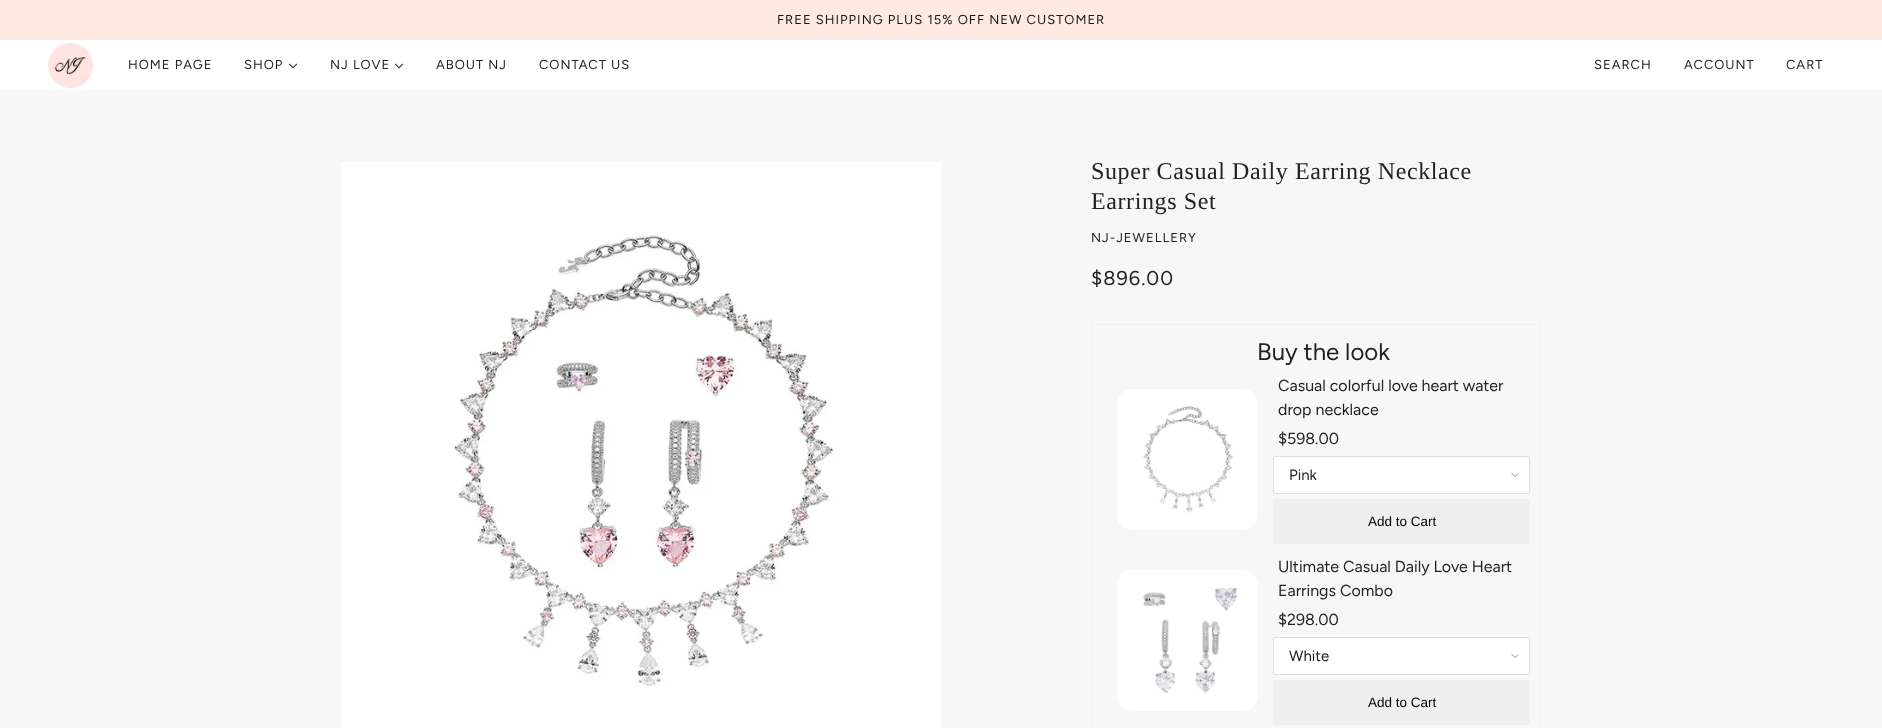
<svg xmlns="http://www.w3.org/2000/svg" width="1882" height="728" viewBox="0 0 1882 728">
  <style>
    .t1 { font: 13px Figtree; letter-spacing: 1px; fill: #181616; }
    .t2 { font: 13px Figtree; letter-spacing: 1px; fill: #222; }
    .t3 { font: 24px Liberation Serif; letter-spacing: 0.6px; fill: #222; }
    .t4 { font: 20px Figtree; letter-spacing: 1px; fill: #222; }
    .t5 { font: 24px Figtree; fill: #222; }
    .t6 { font: 16px Figtree; fill: #222; }
    .t7 { font: 15px Figtree; fill: #222; }
    .t8 { font: 13.5px Liberation Sans; fill: #000; }
  </style>
  <rect width="100%" height="100%" fill="#fff"/>
  <rect x="0" y="0" width="1882" height="40" fill="#feeae1"/>
  <text x="777" y="24" class="t1">FREE SHIPPING PLUS 15% OFF NEW CUSTOMER</text>
  <image x="48" y="43" width="45" height="45" href="images/1.png"/>
  <text x="128" y="69" class="t2">HOME PAGE</text>
  <text x="244" y="69" class="t2">SHOP</text>
  <image x="288" y="63" width="10" height="6" href="images/2.png"/>
  <text x="330" y="69" class="t2">NJ LOVE</text>
  <image x="394" y="63" width="10" height="6" href="images/2.png"/>
  <text x="436" y="69" class="t2">ABOUT NJ</text>
  <text x="539" y="69" class="t2">CONTACT US</text>
  <text x="1594" y="69" class="t2">SEARCH</text>
  <text x="1684" y="69" class="t2">ACCOUNT</text>
  <text x="1786" y="69" class="t2">CART</text>
  <rect x="0" y="90" width="1882" height="638" fill="#f7f7f7"/>
  <image x="341" y="162" width="600" height="566" href="images/3.png"/>
  <text x="1091" y="179" class="t3">Super Casual Daily Earring Necklace</text>
  <text x="1091" y="209" class="t3">Earrings Set</text>
  <text x="1091" y="242" class="t2">NJ-JEWELLERY</text>
  <text x="1091" y="285" class="t4">$896.00</text>
  <rect x="1091.5" y="324.5" width="449" height="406" rx="1.5" fill="none" stroke="#f0f0f0"/>
  <text x="1257" y="360" class="t5">Buy the look</text>
  <image x="1117" y="389" width="141" height="141" href="images/4.png"/>
  <text x="1278" y="391" class="t6">Casual colorful love heart water</text>
  <text x="1278" y="415" class="t6">drop necklace</text>
  <text x="1278" y="444" class="t6">$598.00</text>
  <rect x="1273" y="456" width="257" height="38" rx="2" fill="#fff"/>
  <image x="1511" y="473" width="8" height="4" href="images/5.png"/>
  <rect x="1273.5" y="456.5" width="256" height="37" rx="1.5" fill="none" stroke="#e0e0e0"/>
  <text x="1289" y="480" class="t7">Pink</text>
  <rect x="1273" y="499" width="257" height="45" rx="2" fill="#efefef"/>
  <text x="1368" y="526" class="t8">Add to Cart</text>
  <image x="1117" y="570" width="141" height="141" href="images/6.png"/>
  <text x="1278" y="572" class="t6">Ultimate Casual Daily Love Heart</text>
  <text x="1278" y="596" class="t6">Earrings Combo</text>
  <text x="1278" y="625" class="t6">$298.00</text>
  <rect x="1273" y="637" width="257" height="38" rx="2" fill="#fff"/>
  <image x="1511" y="654" width="8" height="4" href="images/5.png"/>
  <rect x="1273.5" y="637.5" width="256" height="37" rx="1.5" fill="none" stroke="#e0e0e0"/>
  <text x="1289" y="661" class="t7">White</text>
  <rect x="1273" y="680" width="257" height="45" rx="2" fill="#efefef"/>
  <text x="1368" y="707" class="t8">Add to Cart</text>
</svg>
